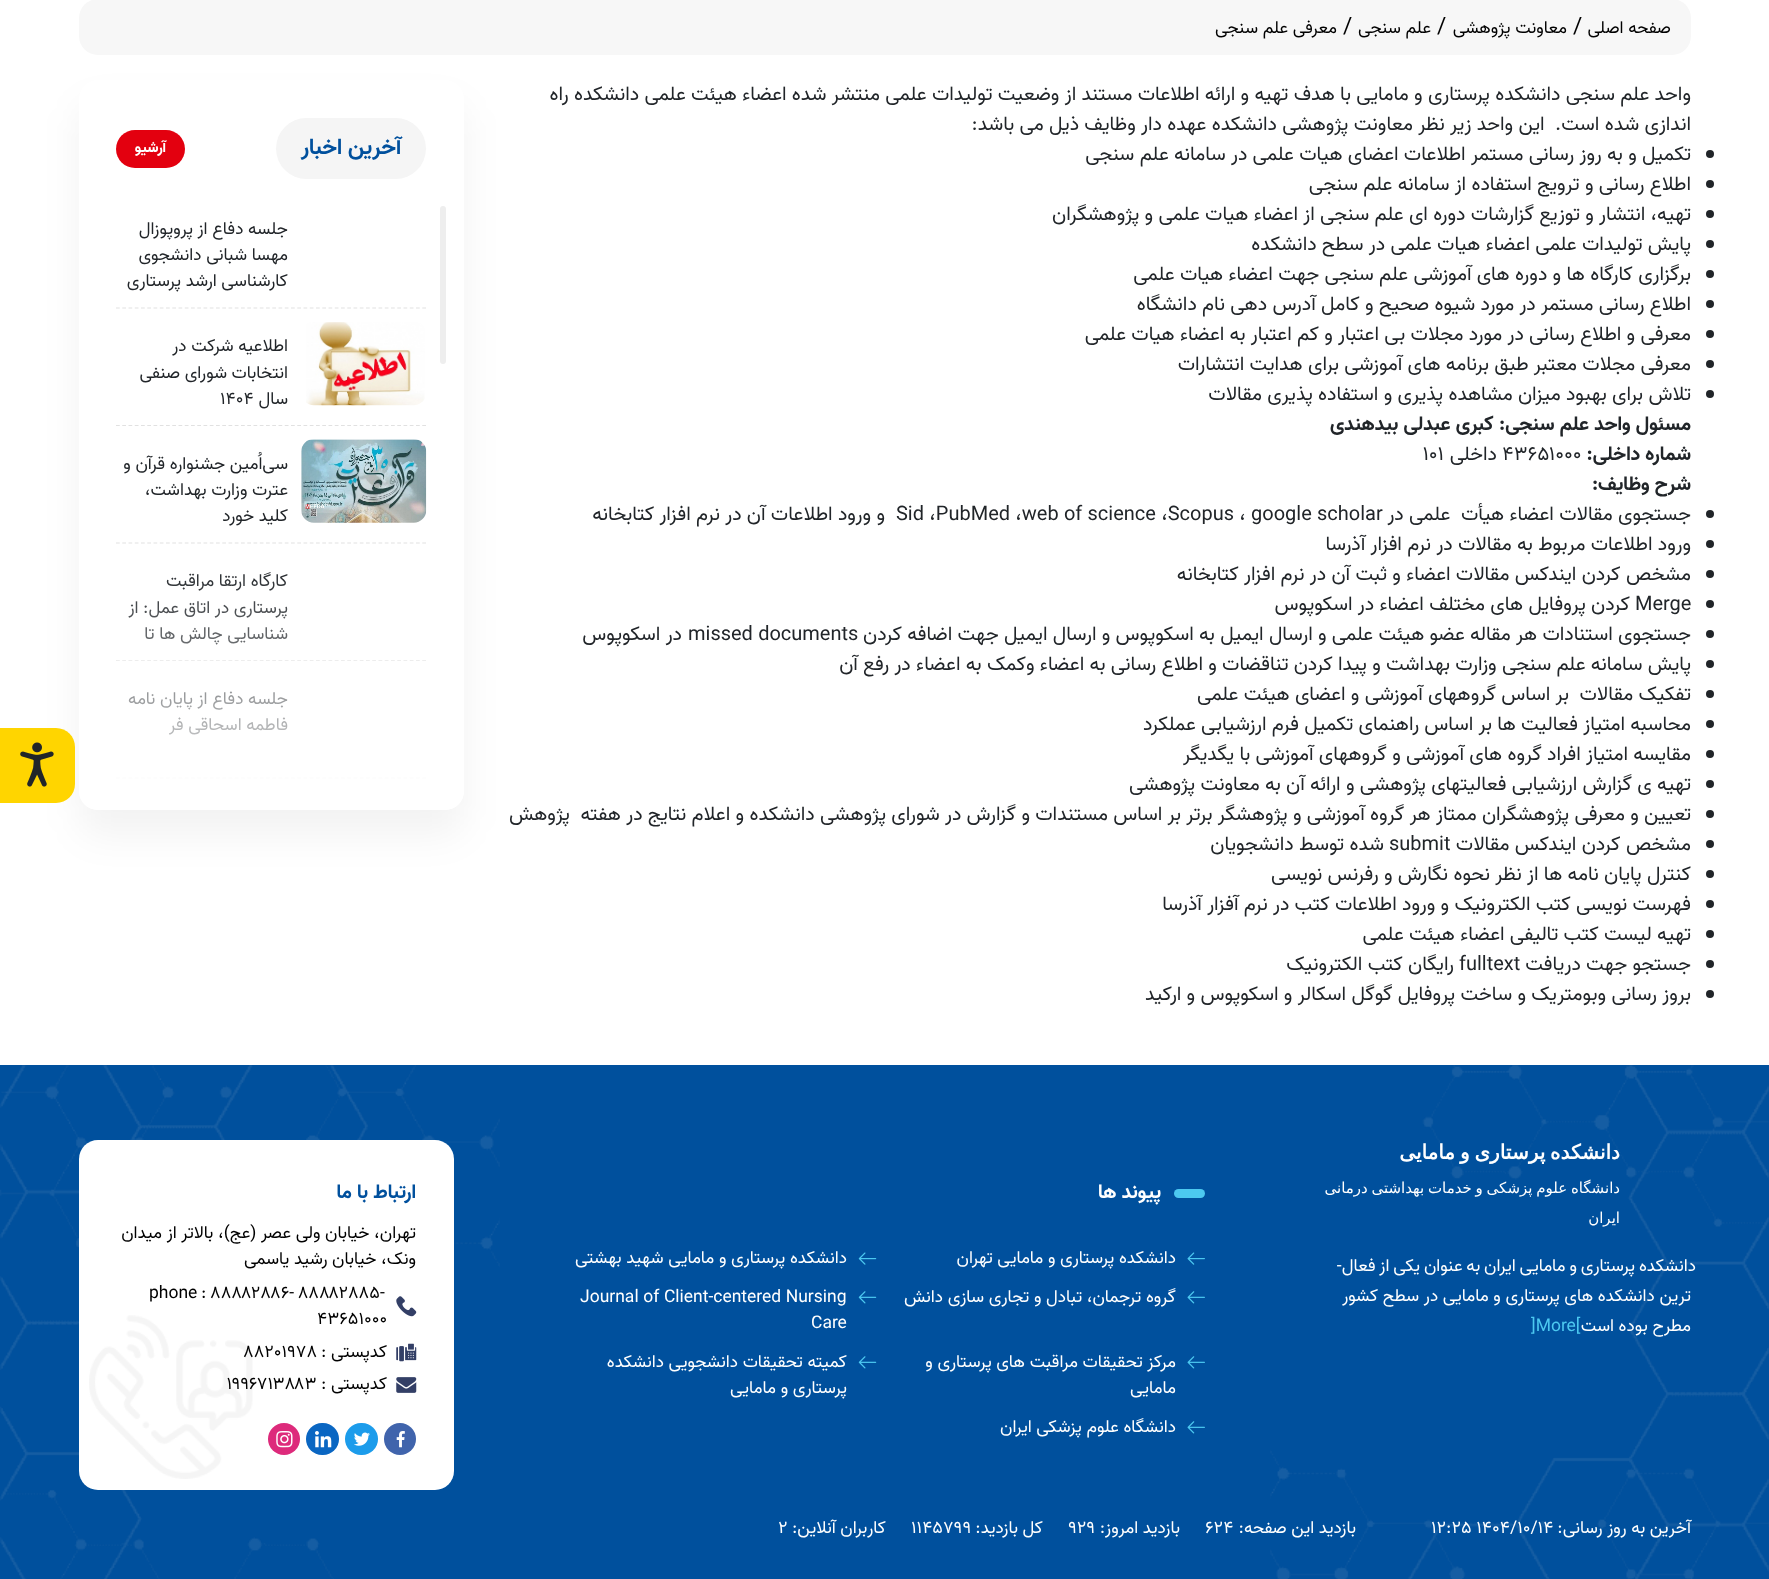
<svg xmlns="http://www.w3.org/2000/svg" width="1769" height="1579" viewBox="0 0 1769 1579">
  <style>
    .t1 { font: 17.5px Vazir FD; direction: rtl; fill: #000; }
    .t2 { font: 22.5px Vazir FD; fill: #000; }
    .t3 { font: 20px Vazir FD; direction: rtl; fill: #212529; }
    .t4 { font: bold 20px Vazir FD; direction: rtl; fill: #212529; }
    .t5 { font: 20px Vazir FD; fill: #212529; }
    .t6 { font: bold 22.5px Vazir FD; direction: rtl; fill: #00509d; }
    .t7 { font: bold 15px Vazir FD; direction: rtl; fill: #fff; }
    .t8 { font: 17.5px Vazir FD; direction: rtl; fill: #212529; }
    .t9 { font: 17.5px Vazir FD; fill: #212529; }
    .t10 { font: bold 20px DejaVu Sans; direction: rtl; fill: #fff; }
    .t11 { font: 15px DejaVu Sans; direction: rtl; fill: #fff; }
    .t12 { font: 17.5px Vazir FD; direction: rtl; fill: #fff; }
    .t13 { font: 17.5px Vazir FD; fill: #4cc9f0; }
    .t14 { font: bold 20px Vazir FD; direction: rtl; fill: #fff; }
    .t15 { font: 17.5px Vazir FD; fill: #fff; }
    .t16 { font: bold 20px Vazir FD; direction: rtl; fill: #00509d; }
    .t17 { font: 17.5px Vazir FD; fill: #000; }
  </style>
  <defs>
    <linearGradient id="g1" gradientUnits="userSpaceOnUse" x1="271" y1="563" x2="271" y2="810"><stop offset="0" stop-color="#fff" stop-opacity="0"/><stop offset="1" stop-color="#fff"/></linearGradient>
  </defs>
  <rect width="100%" height="100%" fill="#fff"/>
  <rect x="79" y="-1" width="1612" height="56" rx="19" fill="#f7f7f7"/>
  <text x="1671" y="33" class="t1">صفحه اصلی</text>
  <text x="1573" y="33" class="t2">/</text>
  <text x="1567" y="33" class="t1">معاونت پژوهشی</text>
  <text x="1437" y="33" class="t2">/</text>
  <text x="1431" y="33" class="t1">علم سنجی</text>
  <text x="1343" y="33" class="t2">/</text>
  <text x="1337" y="33" class="t1">معرفی علم سنجی</text>
  <text x="1691" y="100" class="t3">واحد علم سنجی دانشکده پرستاری و مامایی با هدف تهیه و ارائه اطلاعات مستند از وضعیت تولیدات علمی منتشر شده اعضاء هیئت علمی دانشکده راه</text>
  <text x="1691" y="130" class="t3" xml:space="preserve">اندازی شده است.  این واحد زیر نظر معاونت پژوهشی دانشکده عهده دار وظایف ذیل می باشد:</text>
  <circle cx="1710" cy="154" r="4" fill="#212529"/>
  <text x="1691" y="160" class="t3">تکمیل و به روز رسانی مستمر اطلاعات اعضای هیات علمی در سامانه علم سنجی</text>
  <circle cx="1710" cy="184" r="4" fill="#212529"/>
  <text x="1691" y="190" class="t3">اطلاع رسانی و ترویج استفاده از سامانه علم سنجی</text>
  <circle cx="1710" cy="214" r="4" fill="#212529"/>
  <text x="1691" y="220" class="t3">تهیه، انتشار و توزیع گزارشات دوره ای علم سنجی از اعضاء هیات علمی و پژوهشگران</text>
  <circle cx="1710" cy="244" r="4" fill="#212529"/>
  <text x="1691" y="250" class="t3">پایش تولیدات علمی اعضاء هیات علمی در سطح دانشکده</text>
  <circle cx="1710" cy="274" r="4" fill="#212529"/>
  <text x="1691" y="280" class="t3">برگزاری کارگاه ها و دوره های آموزشی علم سنجی جهت اعضاء هیات علمی</text>
  <circle cx="1710" cy="304" r="4" fill="#212529"/>
  <text x="1691" y="310" class="t3">اطلاع رسانی مستمر در مورد شیوه صحیح و کامل آدرس دهی نام دانشگاه</text>
  <circle cx="1710" cy="334" r="4" fill="#212529"/>
  <text x="1691" y="340" class="t3">معرفی و اطلاع رسانی در مورد مجلات بی اعتبار و کم اعتبار به اعضاء هیات علمی</text>
  <circle cx="1710" cy="364" r="4" fill="#212529"/>
  <text x="1691" y="370" class="t3">معرفی مجلات معتبر طبق برنامه های آموزشی برای هدایت انتشارات</text>
  <circle cx="1710" cy="394" r="4" fill="#212529"/>
  <text x="1691" y="400" class="t3">تلاش برای بهبود میزان مشاهده پذیری و استفاده پذیری مقالات</text>
  <text x="1691" y="430" class="t4">مسئول واحد علم سنجی: کبری عبدلی بیدهندی</text>
  <text x="1691" y="460" class="t4">شماره داخلی:</text>
  <text x="1502" y="460" class="t5">۴۳۶۵۱۰۰۰</text>
  <text x="1497" y="460" class="t3">داخلی</text>
  <text x="1423" y="460" class="t5">۱۰۱</text>
  <text x="1691" y="490" class="t4">شرح وظایف:</text>
  <circle cx="1710" cy="514" r="4" fill="#212529"/>
  <text x="1691" y="520" class="t3" xml:space="preserve">جستجوی مقالات اعضاء هیأت  علمی در</text>
  <text x="896" y="520" class="t5">Sid ،PubMed ،web of science ،Scopus ، google scholar</text>
  <text x="885" y="520" class="t3">و ورود اطلاعات آن در نرم افزار کتابخانه</text>
  <circle cx="1710" cy="544" r="4" fill="#212529"/>
  <text x="1691" y="550" class="t3">ورود اطلاعات مربوط به مقالات در نرم افزار آذرسا</text>
  <circle cx="1710" cy="574" r="4" fill="#212529"/>
  <text x="1691" y="580" class="t3">مشخص کردن ایندکس مقالات اعضاء و ثبت آن در نرم افزار کتابخانه</text>
  <circle cx="1710" cy="604" r="4" fill="#212529"/>
  <text x="1635" y="610" class="t5">Merge</text>
  <text x="1630" y="610" class="t3">کردن پروفایل های مختلف اعضاء در اسکوپوس</text>
  <circle cx="1710" cy="634" r="4" fill="#212529"/>
  <text x="1691" y="640" class="t3">جستجوی استنادات ھر مقاله عضو ھیئت علمی و ارسال ایمیل به اسکوپوس و ارسال ایمیل جهت اضافه کردن</text>
  <text x="688" y="640" class="t5">missed documents</text>
  <text x="682" y="640" class="t3">در اسکوپوس</text>
  <circle cx="1710" cy="664" r="4" fill="#212529"/>
  <text x="1691" y="670" class="t3">پایش سامانه علم سنجی وزارت بهداشت و پیدا کردن تناقضات و اطلاع رسانی به اعضاء وکمک به اعضاء در رفع آن</text>
  <circle cx="1710" cy="694" r="4" fill="#212529"/>
  <text x="1691" y="700" class="t3" xml:space="preserve">تفکیک مقالات  بر اساس گروههای آموزشی و اعضای هیئت علمی</text>
  <circle cx="1710" cy="724" r="4" fill="#212529"/>
  <text x="1691" y="730" class="t3">محاسبه امتیاز فعالیت ها بر اساس راهنمای تکمیل فرم ارزشیابی عملکرد</text>
  <circle cx="1710" cy="754" r="4" fill="#212529"/>
  <text x="1691" y="760" class="t3">مقایسه امتیاز افراد گروه های آموزشی و گروههای آموزشی با یگدیگر</text>
  <circle cx="1710" cy="784" r="4" fill="#212529"/>
  <text x="1691" y="790" class="t3">تهیه ی گزارش ارزشیابی فعالیتهای پژوهشی و ارائه آن به معاونت پژوهشی</text>
  <circle cx="1710" cy="814" r="4" fill="#212529"/>
  <text x="1691" y="820" class="t3" xml:space="preserve">تعیین و معرفی پژوهشگران ممتاز هر گروه آموزشی و پژوهشگر برتر بر اساس مستندات و گزارش در شورای پژوهشی دانشکده و اعلام نتایج در هفته  پژوهش</text>
  <circle cx="1710" cy="844" r="4" fill="#212529"/>
  <text x="1691" y="850" class="t3">مشخص کردن ایندکس مقالات</text>
  <text x="1389" y="850" class="t5">submit</text>
  <text x="1384" y="850" class="t3">شده توسط دانشجویان</text>
  <circle cx="1710" cy="874" r="4" fill="#212529"/>
  <text x="1691" y="880" class="t3">کنترل پایان نامه ها از نظر نحوه نگارش و رفرنس نویسی</text>
  <circle cx="1710" cy="904" r="4" fill="#212529"/>
  <text x="1691" y="910" class="t3">فهرست نویسی کتب الکترونیک و ورود اطلاعات کتب در نرم آفزار آذرسا</text>
  <circle cx="1710" cy="934" r="4" fill="#212529"/>
  <text x="1691" y="940" class="t3">تهیه لیست کتب تالیفی اعضاء هیئت علمی</text>
  <circle cx="1710" cy="964" r="4" fill="#212529"/>
  <text x="1691" y="970" class="t3">جستجو جهت دریافت</text>
  <text x="1459" y="970" class="t5">fulltext</text>
  <text x="1454" y="970" class="t3">رایگان کتب الکترونیک</text>
  <circle cx="1710" cy="994" r="4" fill="#212529"/>
  <text x="1691" y="1000" class="t3">بروز رسانی وبومتریک و ساخت پروفایل گوگل اسکالر و اسکوپوس و ارکید</text>
  <rect x="79" y="105" width="385" height="730" rx="19" fill="#0000000d" filter="blur(19px)"/>
  <rect x="79" y="80" width="385" height="730" rx="19" fill="#fff"/>
  <rect x="276" y="118" width="150" height="61" rx="30.5" fill="#f5f5f5"/>
  <text x="401" y="154" class="t6">آخرین اخبار</text>
  <rect x="116" y="130" width="69" height="38" rx="19" fill="#e3000f"/>
  <text x="166" y="152" class="t7">آرشیو</text>
  <rect x="440" y="206" width="6" height="158" rx="3" fill="#eee"/>
  <path d="M116 308H426" fill="none" stroke="#e1e1e1" stroke-width="1.2" stroke-dasharray="3.75 2.5"/>
  <text x="288" y="234" class="t8">جلسه دفاع از پروپوزال</text>
  <text x="288" y="260" class="t8">مهسا شبانی دانشجوی</text>
  <text x="288" y="286" class="t8">کارشناسی ارشد پرستاری</text>
  <path d="M116 425.5H426" fill="none" stroke="#e1e1e1" stroke-width="1.2" stroke-dasharray="3.75 2.5"/>
  <image x="306" y="322" width="119" height="84" href="images/1.png"/>
  <text x="288" y="351" class="t8">اطلاعیه شرکت در</text>
  <text x="288" y="378" class="t8">انتخابات شورای صنفی</text>
  <text x="288" y="404" class="t8">سال</text>
  <text x="220" y="404" class="t9">1404</text>
  <path d="M116 543H426" fill="none" stroke="#e1e1e1" stroke-width="1.2" stroke-dasharray="3.75 2.5"/>
  <image x="301" y="439" width="126" height="84" href="images/2.png"/>
  <text x="288" y="469" class="t8">سی‌اُمین جشنواره قرآن و</text>
  <text x="288" y="495" class="t8">عترت وزارت بهداشت،</text>
  <text x="288" y="521" class="t8">کلید خورد</text>
  <path d="M116 660.5H426" fill="none" stroke="#e1e1e1" stroke-width="1.2" stroke-dasharray="3.75 2.5"/>
  <text x="288" y="586" class="t8">کارگاه ارتقا مراقبت</text>
  <text x="288" y="613" class="t8">پرستاری در اتاق عمل: از</text>
  <text x="288" y="639" class="t8">شناسایی چالش ها تا</text>
  <path d="M116 778H426" fill="none" stroke="#e1e1e1" stroke-width="1.2" stroke-dasharray="3.75 2.5"/>
  <text x="288" y="704" class="t8">جلسه دفاع از پایان نامه</text>
  <text x="288" y="730" class="t8">فاطمه اسحاقی فر</text>
  <path d="M79 563H464V791C464 801.5 455.5 810 445 810H98C87.5 810 79 801.5 79 791Z" fill="url(#g1)"/>
  <rect x="0" y="1065" width="1769" height="514" fill="#00509d"/>
  <image x="1270" y="1065" width="499" height="514" href="images/3.png"/>
  <image x="0" y="1065" width="500" height="514" href="images/4.png"/>
  <text x="1620" y="1159" word-spacing="-1.5" class="t10">دانشکده پرستاری و مامایی</text>
  <text x="1620" y="1193" word-spacing="-1" class="t11">دانشگاه علوم پزشکی و خدمات بهداشتی درمانی</text>
  <text x="1620" y="1223" class="t11">ایران</text>
  <text x="1696" y="1271" word-spacing="-0.75" class="t12">دانشکده پرستاری و مامایی ایران به عنوان یکی از فعال-</text>
  <text x="1691" y="1301" class="t12">ترین دانشکده های پرستاری و مامایی در سطح کشور</text>
  <text x="1691" y="1331" class="t12">مطرح بوده است</text>
  <text x="1531" y="1331" class="t13">]More[</text>
  <rect x="1174" y="1189" width="31" height="9" rx="4.5" fill="#4cc9f0"/>
  <text x="1161" y="1198" class="t14">پیوند ها</text>
  <image x="1187" y="1252" width="18" height="13" href="images/5.png"/>
  <text x="1176" y="1263" class="t12">دانشکده پرستاری و مامایی تهران</text>
  <image x="858" y="1252" width="19" height="13" href="images/6.png"/>
  <text x="847" y="1263" class="t12">دانشکده پرستاری و مامایی شهید بهشتی</text>
  <image x="1187" y="1291" width="18" height="13" href="images/7.png"/>
  <text x="1176" y="1302" class="t12">گروه ترجمان، تبادل و تجاری سازی دانش</text>
  <image x="858" y="1291" width="19" height="13" href="images/8.png"/>
  <text x="580" y="1302" class="t15">Journal of Client-centered Nursing</text>
  <text x="811" y="1328" class="t15">Care</text>
  <image x="1187" y="1356" width="18" height="13" href="images/7.png"/>
  <text x="1176" y="1367" class="t12">مرکز تحقیقات مراقبت های پرستاری و</text>
  <text x="1176" y="1393" class="t12">مامایی</text>
  <image x="858" y="1356" width="19" height="13" href="images/8.png"/>
  <text x="847" y="1367" class="t12">کمیته تحقیقات دانشجویی دانشکده</text>
  <text x="847" y="1393" class="t12">پرستاری و مامایی</text>
  <image x="1187" y="1421" width="18" height="13" href="images/7.png"/>
  <text x="1176" y="1432" class="t12">دانشگاه علوم پزشکی ایران</text>
  <rect x="79" y="1140" width="375" height="350" rx="19" fill="#fff"/>
  <text x="416" y="1198" class="t16">ارتباط با ما</text>
  <text x="416" y="1238" class="t1">تهران، خیابان ولی عصر (عج)، بالاتر از میدان</text>
  <text x="416" y="1264" class="t1">ونک، خیابان رشید یاسمی</text>
  <image x="396" y="1296" width="21" height="21" href="images/9.png"/>
  <text x="149" y="1298" word-spacing="-1" class="t17">phone : ۸۸۸۸۲۸۸۶- ۸۸۸۸۲۸۸۵-</text>
  <text x="317" y="1324" class="t17">43651000</text>
  <image x="396" y="1343" width="21" height="19" href="images/10.png"/>
  <text x="387" y="1357" class="t1">کدپستی :</text>
  <image x="89" y="1315" width="164" height="164" href="images/16.png"/>
  <text x="243" y="1357" class="t17">88201978</text>
  <image x="396" y="1377" width="21" height="16" href="images/11.png"/>
  <text x="387" y="1389" class="t1">کدپستی :</text>
  <text x="227" y="1389" class="t17">۱۹۹۶۷۱۳۸۸۳</text>
  <circle cx="400" cy="1439" r="16" fill="#4064ac"/>
  <image x="396" y="1431" width="9" height="17" href="images/12.png"/>
  <rect x="345" y="1423" width="33" height="32" rx="16" fill="#1c9ceb"/>
  <image x="354" y="1432" width="16" height="14" href="images/13.png"/>
  <rect x="306" y="1423" width="33" height="32" rx="16" fill="#0a66c2"/>
  <image x="315" y="1431" width="17" height="17" href="images/14.png"/>
  <circle cx="284" cy="1439" r="16" fill="#dd2a7b"/>
  <image x="276" y="1431" width="17" height="17" href="images/15.png"/>
  <text x="1691" y="1533" class="t12">آخرین به روز رسانی:</text>
  <text x="1431" y="1533" class="t15">12:25 1404/10/14</text>
  <text x="1356" y="1533" class="t12">بازدید این صفحه:</text>
  <text x="1205" y="1533" class="t15">624</text>
  <text x="1180" y="1533" class="t12">بازدید امروز:</text>
  <text x="1068" y="1533" class="t15">929</text>
  <text x="1043" y="1533" class="t12">کل بازدید:</text>
  <text x="911" y="1533" class="t15">1145799</text>
  <text x="886" y="1533" class="t12">کاربران آنلاین:</text>
  <text x="778" y="1533" class="t15">2</text>
  <path d="M0 728H56C66.5 728 75 736.5 75 747V784C75 794.5 66.5 803 56 803H0Z" fill="#ffd500"/>
  <image x="20" y="742" width="34" height="45" href="images/17.png"/>
</svg>
